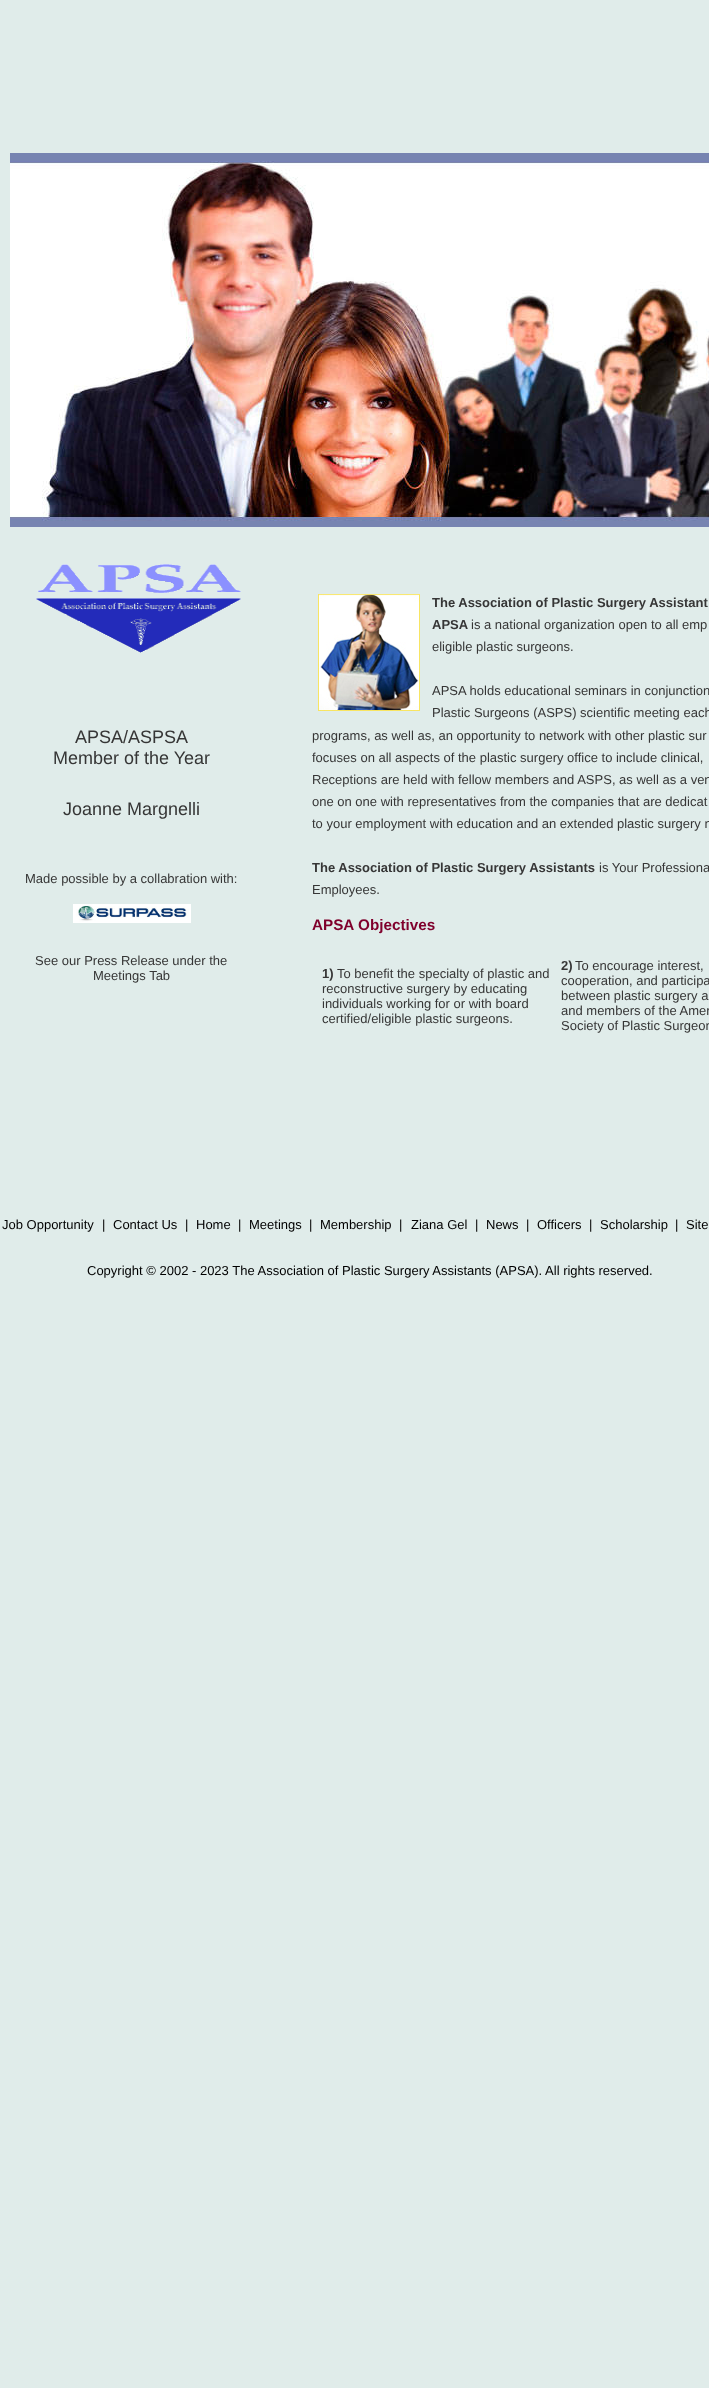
<svg xmlns="http://www.w3.org/2000/svg" width="709" height="2388" viewBox="0 0 709 2388">
  <style>
    .t1 { font: 18px Liberation Sans; fill: #363636; }
    .t2 { font: 13px Liberation Sans; fill: #363636; }
    .t3 { font: bold 13px Liberation Sans; fill: #363636; }
    .t4 { font: bold 15.25px Liberation Sans; fill: #7f002c; }
    .t5 { font: 13px Liberation Sans; fill: #000; }
  </style>
  <rect width="100%" height="100%" fill="#e0ecea"/>
  <image x="10" y="153" width="699" height="374" href="images/1.png"/>
  <image x="36" y="564" width="205" height="89" href="images/2.png"/>
  <text x="75" y="743" class="t1">APSA/ASPSA</text>
  <text x="53" y="764" class="t1">Member of the Year</text>
  <text x="63" y="815" class="t1">Joanne Margnelli</text>
  <text x="25" y="883" class="t2">Made possible by a collabration with:</text>
  <image x="73" y="904" width="118" height="19" href="images/3.png"/>
  <text x="35" y="965" class="t2">See our Press Release under the</text>
  <text x="93" y="980" class="t2">Meetings Tab</text>
  <image x="318" y="594" width="102" height="117" href="images/4.png"/>
  <text x="432" y="607" class="t3">The Association of Plastic Surgery Assistant</text>
  <text x="432" y="629" class="t3">APSA</text>
  <text x="471" y="629" class="t2">is a national organization open to all emp</text>
  <text x="432" y="651" class="t2">eligible plastic surgeons.</text>
  <text x="432" y="695" class="t2">APSA holds educational seminars in conjunction</text>
  <text x="432" y="717" class="t2">Plastic Surgeons (ASPS) scientific meeting each</text>
  <text x="312" y="740" class="t2">programs, as well as, an opportunity to network with other plastic sur</text>
  <text x="312" y="762" class="t2">focuses on all aspects of the plastic surgery office to include clinical,</text>
  <text x="312" y="784" class="t2">Receptions are held with fellow members and ASPS, as well as a ven</text>
  <text x="312" y="806" class="t2">one on one with representatives from the companies that are dedicat</text>
  <text x="312" y="828" class="t2">to your employment with education and an extended plastic surgery n</text>
  <text x="312" y="872" class="t3">The Association of Plastic Surgery Assistants</text>
  <text x="599" y="872" class="t2">is Your Professiona</text>
  <text x="312" y="894" class="t2">Employees.</text>
  <text x="312" y="930" class="t4">APSA Objectives</text>
  <text x="322" y="978" class="t3">1)</text>
  <text x="337" y="978" class="t2">To benefit the specialty of plastic and</text>
  <text x="322" y="993" class="t2">reconstructive surgery by educating</text>
  <text x="322" y="1008" class="t2">individuals working for or with board</text>
  <text x="322" y="1023" class="t2">certified/eligible plastic surgeons.</text>
  <text x="561" y="970" class="t3">2)</text>
  <text x="575" y="970" class="t2">To encourage interest,</text>
  <text x="561" y="985" class="t2">cooperation, and participa</text>
  <text x="561" y="1000" class="t2">between plastic surgery a</text>
  <text x="561" y="1015" class="t2">and members of the Amer</text>
  <text x="561" y="1030" class="t2">Society of Plastic Surgeon</text>
  <text x="2" y="1229" class="t5">Job Opportunity</text>
  <text x="102" y="1229" class="t5">|</text>
  <text x="113" y="1229" class="t5">Contact Us</text>
  <text x="185" y="1229" class="t5">|</text>
  <text x="196" y="1229" class="t5">Home</text>
  <text x="238" y="1229" class="t5">|</text>
  <text x="249" y="1229" class="t5">Meetings</text>
  <text x="309" y="1229" class="t5">|</text>
  <text x="320" y="1229" class="t5">Membership</text>
  <text x="399" y="1229" class="t5">|</text>
  <text x="411" y="1229" class="t5">Ziana Gel</text>
  <text x="475" y="1229" class="t5">|</text>
  <text x="486" y="1229" class="t5">News</text>
  <text x="526" y="1229" class="t5">|</text>
  <text x="537" y="1229" class="t5">Officers</text>
  <text x="589" y="1229" class="t5">|</text>
  <text x="600" y="1229" class="t5">Scholarship</text>
  <text x="675" y="1229" class="t5">|</text>
  <text x="686" y="1229" class="t5">Site</text>
  <text x="87" y="1275" class="t5">Copyright © 2002 - 2023 The Association of Plastic Surgery Assistants (APSA). All rights reserved.</text>
</svg>
